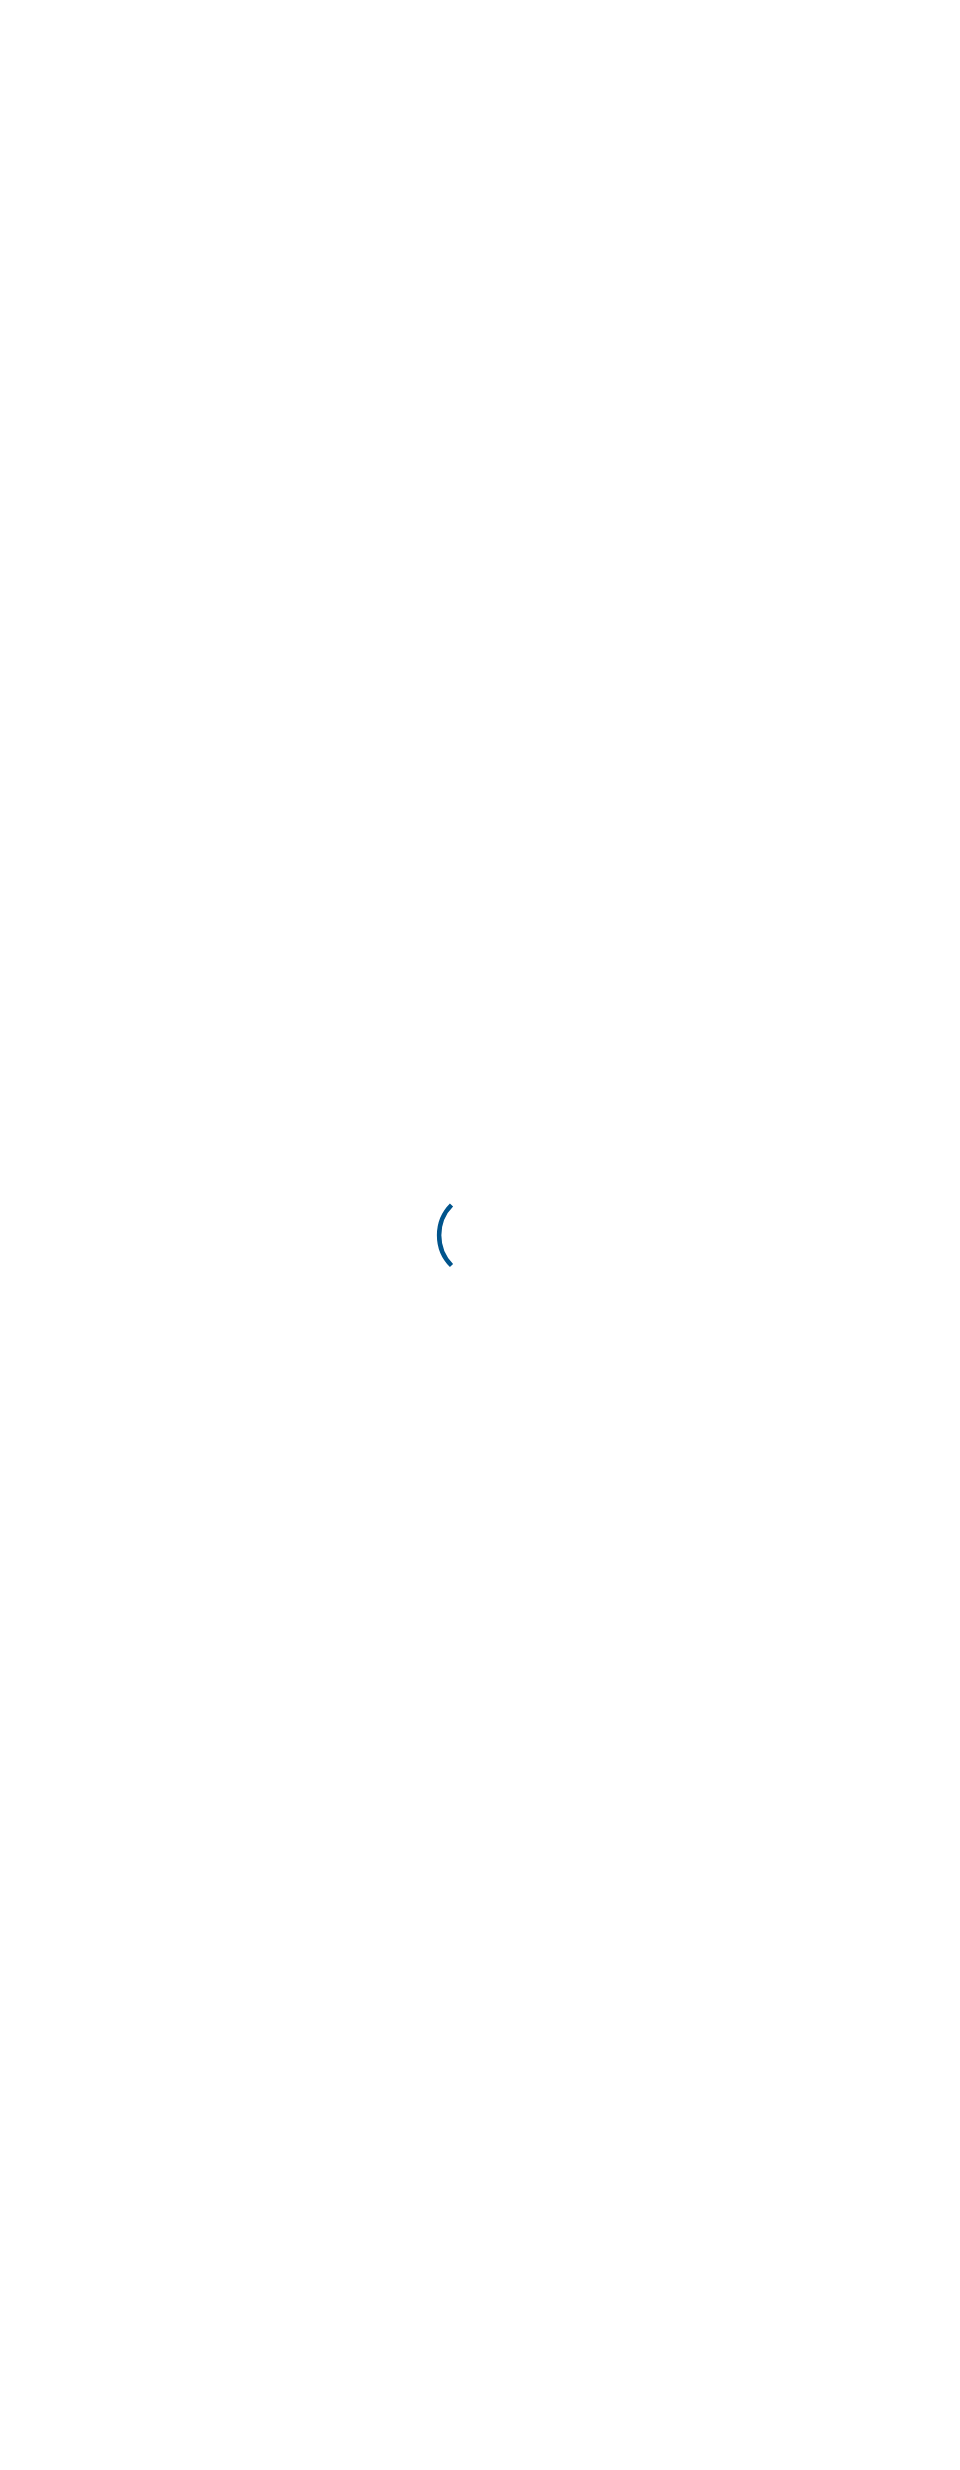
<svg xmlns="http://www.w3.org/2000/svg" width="960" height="2470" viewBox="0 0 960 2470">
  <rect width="100%" height="100%" fill="#fff"/>
  <path d="M451.5 1265.5C435 1249 435 1221.5 451.5 1205" fill="none" stroke="#00548c" stroke-width="4.5"/>
</svg>
